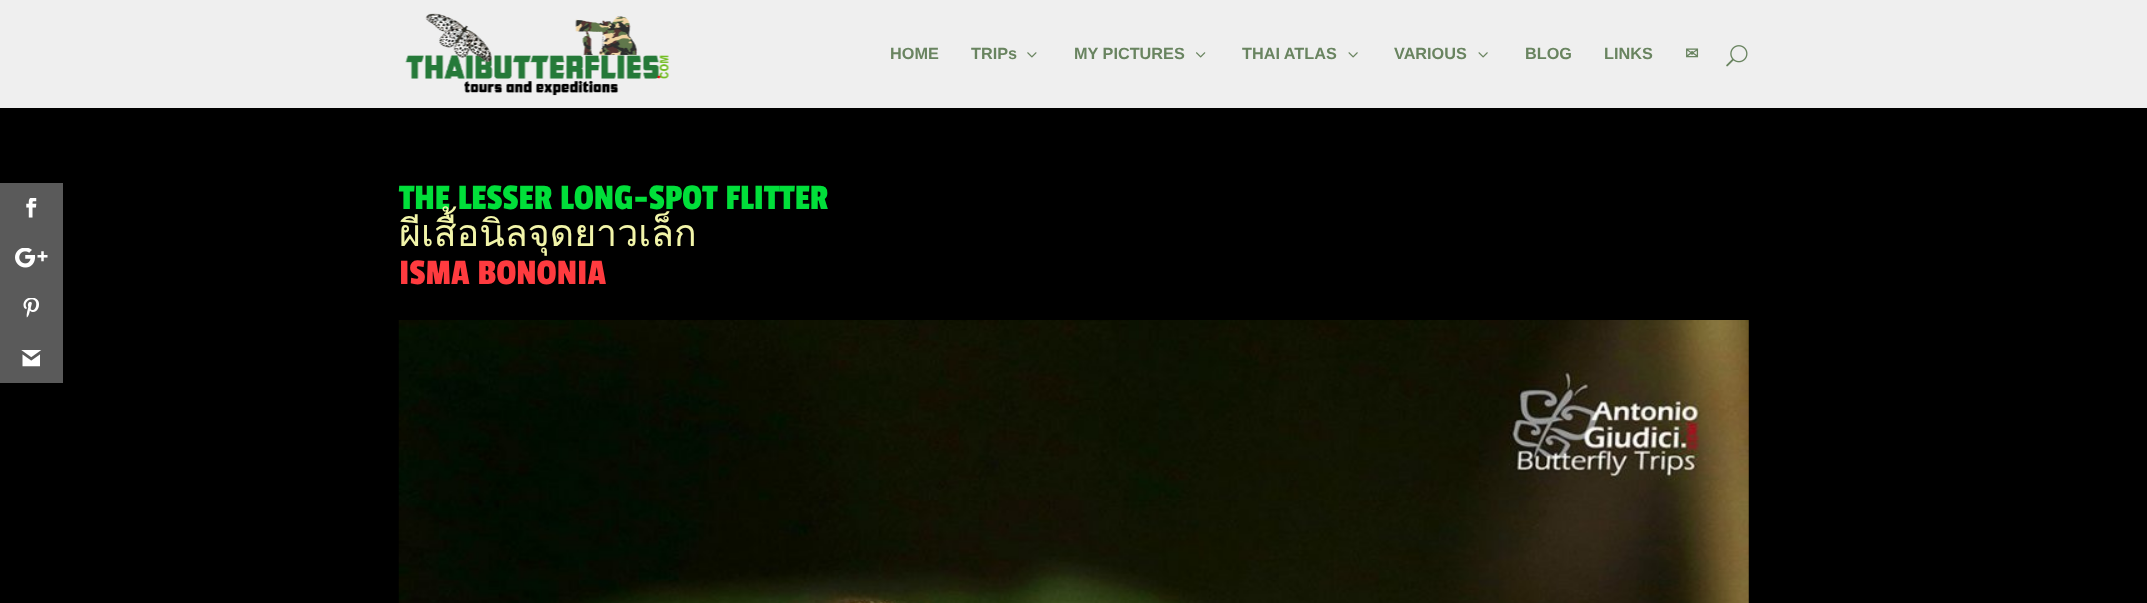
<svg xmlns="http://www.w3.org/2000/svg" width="2147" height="603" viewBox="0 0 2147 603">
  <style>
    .t1 { font: bold 16.25px Liberation Sans; fill: #698460; }
    .t2 { font: bold 16.25px DejaVu Sans; fill: #698460; }
    .t3 { font: 37.5px Passion One; fill: #01df3a; }
    .t4 { font: 37.5px Loma; fill: #f2f5a9; }
    .t5 { font: 37.5px Passion One; fill: #ff3b3f; }
  </style>
  <rect width="100%" height="100%" fill="#000"/>
  <rect x="0" y="183" width="63" height="200" fill="#5a5a5a"/>
  <image x="26" y="198" width="11" height="20" href="images/1.png"/>
  <image x="15" y="248" width="33" height="20" href="images/2.png"/>
  <image x="23" y="298" width="16" height="20" href="images/3.png"/>
  <image x="21" y="350" width="21" height="17" href="images/4.png"/>
  <rect x="0" y="0" width="2147" height="108" fill="#efefef"/>
  <image x="405" y="13" width="265" height="83" href="images/5.png"/>
  <text x="890" y="59" class="t1">HOME</text>
  <text x="971" y="59" class="t1">TRIPs</text>
  <image x="1027" y="52" width="10" height="6" href="images/6.png"/>
  <text x="1074" y="59" class="t1">MY PICTURES</text>
  <image x="1196" y="52" width="10" height="6" href="images/7.png"/>
  <text x="1242" y="59" class="t1">THAI ATLAS</text>
  <image x="1348" y="52" width="10" height="6" href="images/8.png"/>
  <text x="1394" y="59" class="t1">VARIOUS</text>
  <image x="1478" y="52" width="10" height="6" href="images/8.png"/>
  <text x="1525" y="59" class="t1">BLOG</text>
  <text x="1604" y="59" class="t1">LINKS</text>
  <text x="1685" y="59" class="t2">✉</text>
  <image x="1726" y="45" width="22" height="22" href="images/9.png"/>
  <text x="399" y="209" class="t3">THE LESSER LONG-SPOT FLITTER</text>
  <text x="399" y="246" class="t4">ผีเสื้อนิลจุดยาวเล็ก</text>
  <text x="399" y="284" class="t5">ISMA BONONIA</text>
  <image x="398" y="320" width="1351" height="283" href="images/10.png"/>
</svg>
